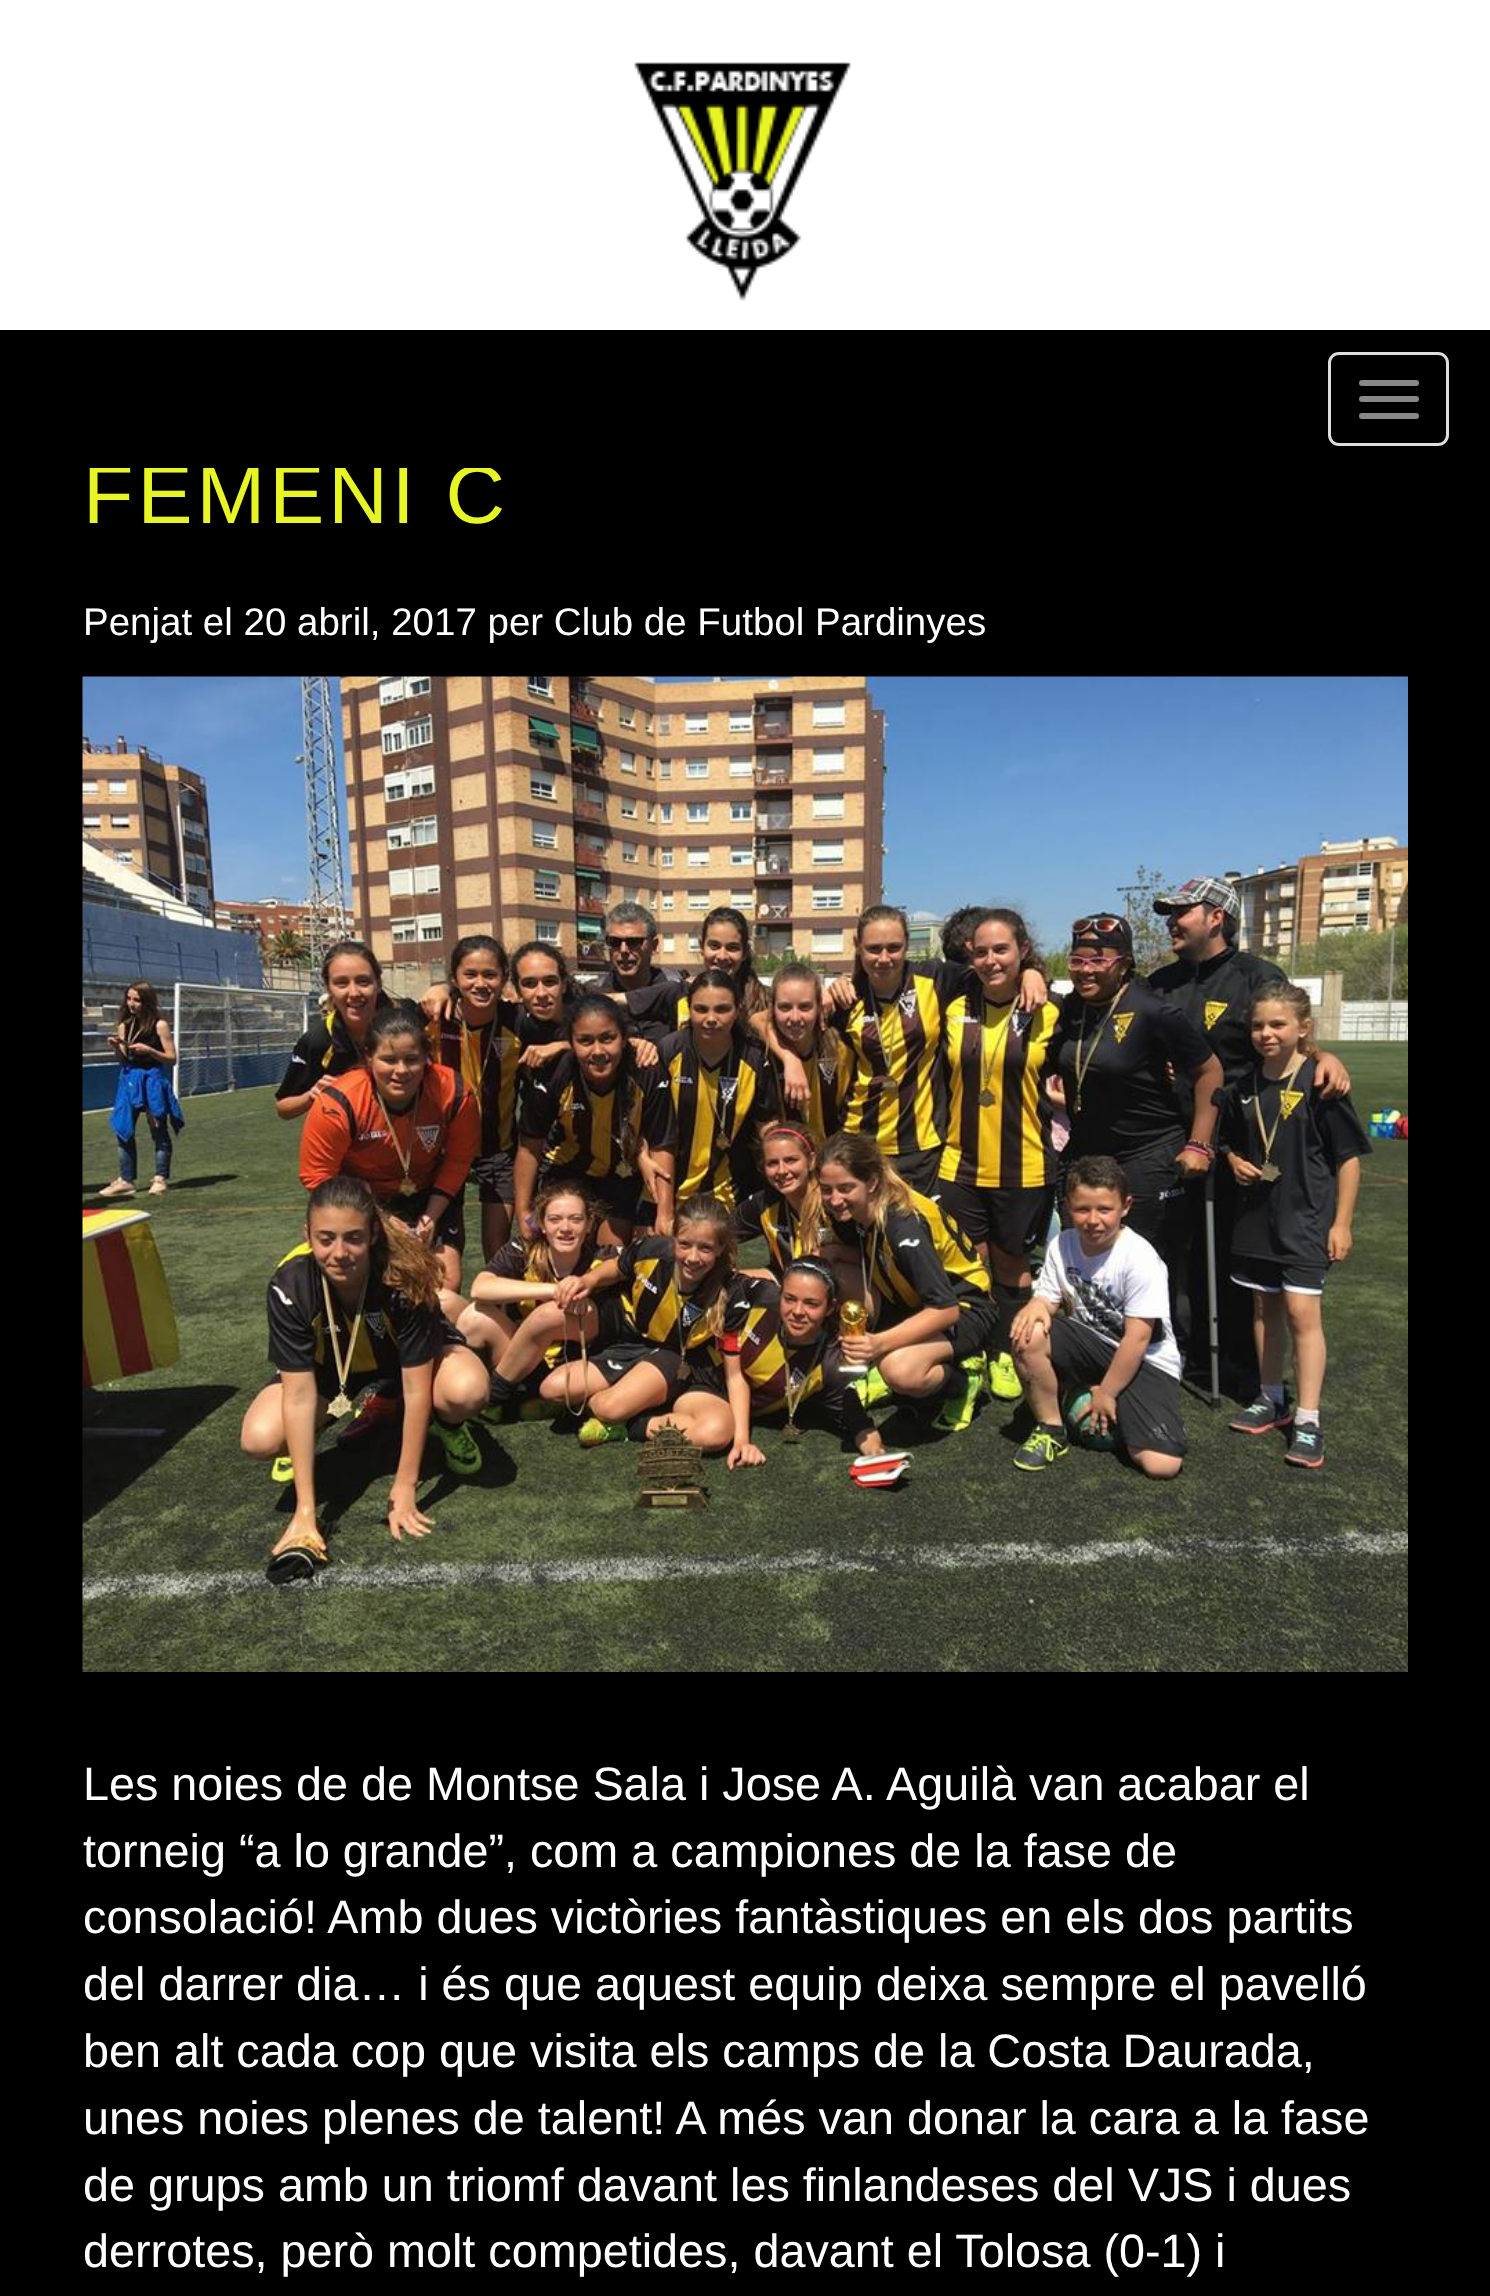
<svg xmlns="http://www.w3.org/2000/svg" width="1490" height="2296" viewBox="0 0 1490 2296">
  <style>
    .t1 { font: 82.5px Liberation Sans; letter-spacing: 4px; fill: #e8f524; }
    .t2 { font: 38.5px Liberation Sans; fill: #fff; }
    .t3 { font: 46.75px Liberation Sans; fill: #fff; }
  </style>
  <rect width="100%" height="100%" fill="#000"/>
  <text x="83" y="523" class="t1">FEMENÍ C</text>
  <rect x="89" y="451" width="402" height="17" fill="#000"/>
  <rect x="0" y="0" width="1490" height="330" fill="#fff"/>
  <image x="634" y="62" width="217" height="239" href="images/1.png"/>
  <rect x="1329.5" y="353.5" width="118" height="91" rx="9.5" fill="none" stroke="#ddd" stroke-width="3"/>
  <rect x="1359" y="380" width="60" height="6" rx="3" fill="#888"/>
  <rect x="1359" y="396" width="60" height="6" rx="3" fill="#888"/>
  <rect x="1359" y="413" width="60" height="6" rx="3" fill="#888"/>
  <text x="83" y="635" class="t2">Penjat el 20 abril, 2017 per Club de Futbol Pardinyes</text>
  <image x="82" y="676" width="1326" height="996" href="images/2.png"/>
  <text x="83" y="1800" class="t3">Les noies de de Montse Sala i Jose A. Aguilà van acabar el</text>
  <text x="83" y="1867" class="t3">torneig “a lo grande”, com a campiones de la fase de</text>
  <text x="83" y="1933" class="t3">consolació! Amb dues victòries fantàstiques en els dos partits</text>
  <text x="83" y="2000" class="t3">del darrer dia… i és que aquest equip deixa sempre el pavelló</text>
  <text x="83" y="2067" class="t3">ben alt cada cop que visita els camps de la Costa Daurada,</text>
  <text x="83" y="2134" class="t3">unes noies plenes de talent! A més van donar la cara a la fase</text>
  <text x="83" y="2201" class="t3">de grups amb un triomf davant les finlandeses del VJS i dues</text>
  <text x="83" y="2267" class="t3">derrotes, però molt competides, davant el Tolosa (0-1) i</text>
</svg>
